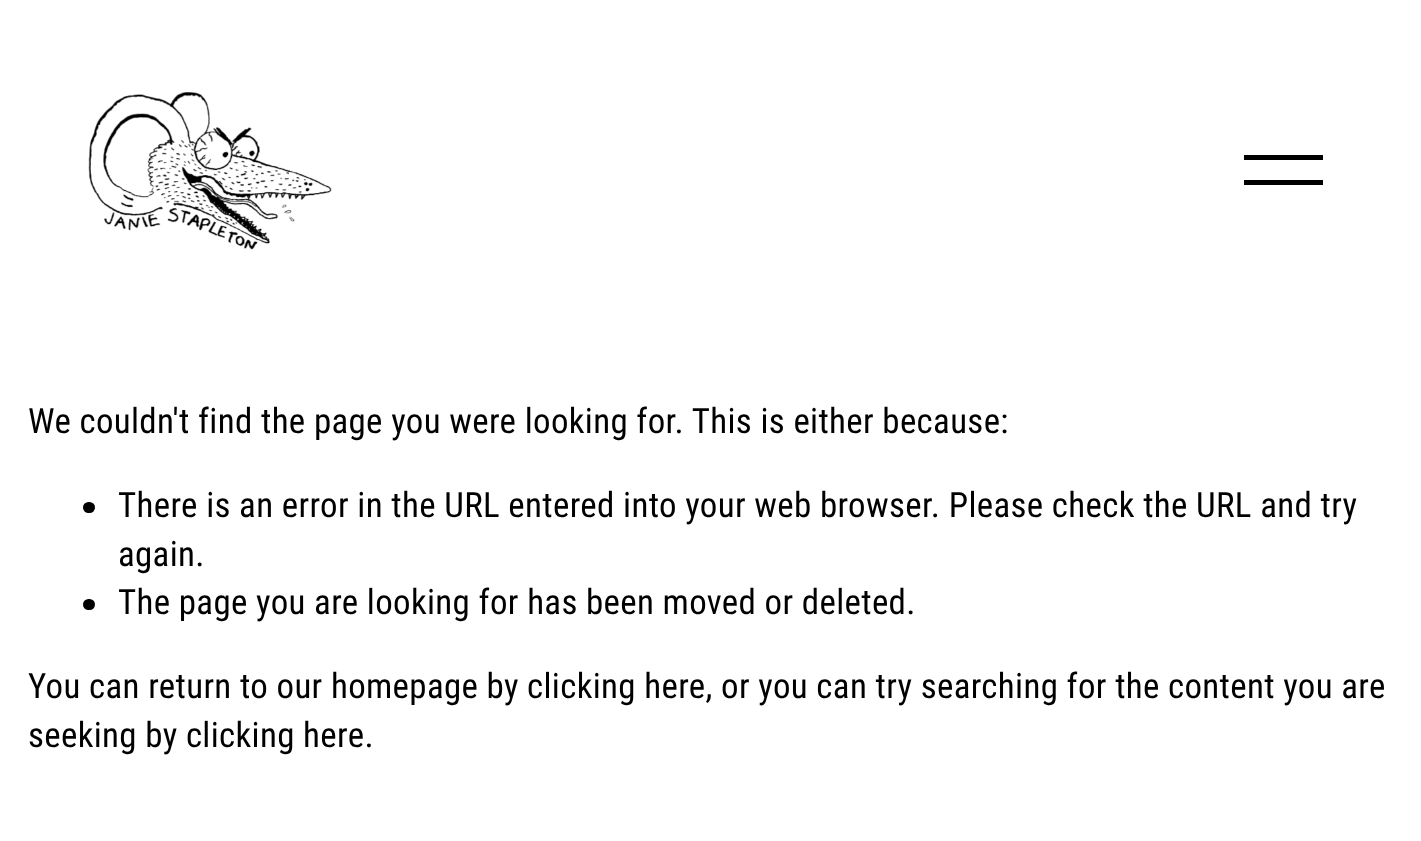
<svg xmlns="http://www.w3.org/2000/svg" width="1421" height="841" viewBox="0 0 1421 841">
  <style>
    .t1 { font: 34.9px Roboto Condensed; letter-spacing: 0.35px; fill: #000; }
  </style>
  <rect width="100%" height="100%" fill="#fff"/>
  <image x="88" y="92" width="244" height="158" href="images/1.png"/>
  <rect x="1244" y="155" width="79" height="5" fill="#000"/>
  <rect x="1244" y="180" width="79" height="5" fill="#000"/>
  <text x="28" y="433" class="t1">We couldn't find the page you were looking for. This is either because:</text>
  <rect x="83" y="502" width="12" height="11" rx="5.5" fill="#000"/>
  <text x="118" y="517" class="t1">There is an error in the URL entered into your web browser. Please check the URL and try</text>
  <text x="118" y="566" class="t1">again.</text>
  <rect x="83" y="599" width="12" height="11" rx="5.5" fill="#000"/>
  <text x="118" y="614" class="t1">The page you are looking for has been moved or deleted.</text>
  <text x="28" y="698" class="t1">You can return to our homepage by</text>
  <text x="527" y="698" class="t1">clicking here, or you can try searching for the</text>
  <text x="1168" y="698" class="t1">content you are</text>
  <text x="28" y="747" class="t1">seeking by clicking here.</text>
</svg>
